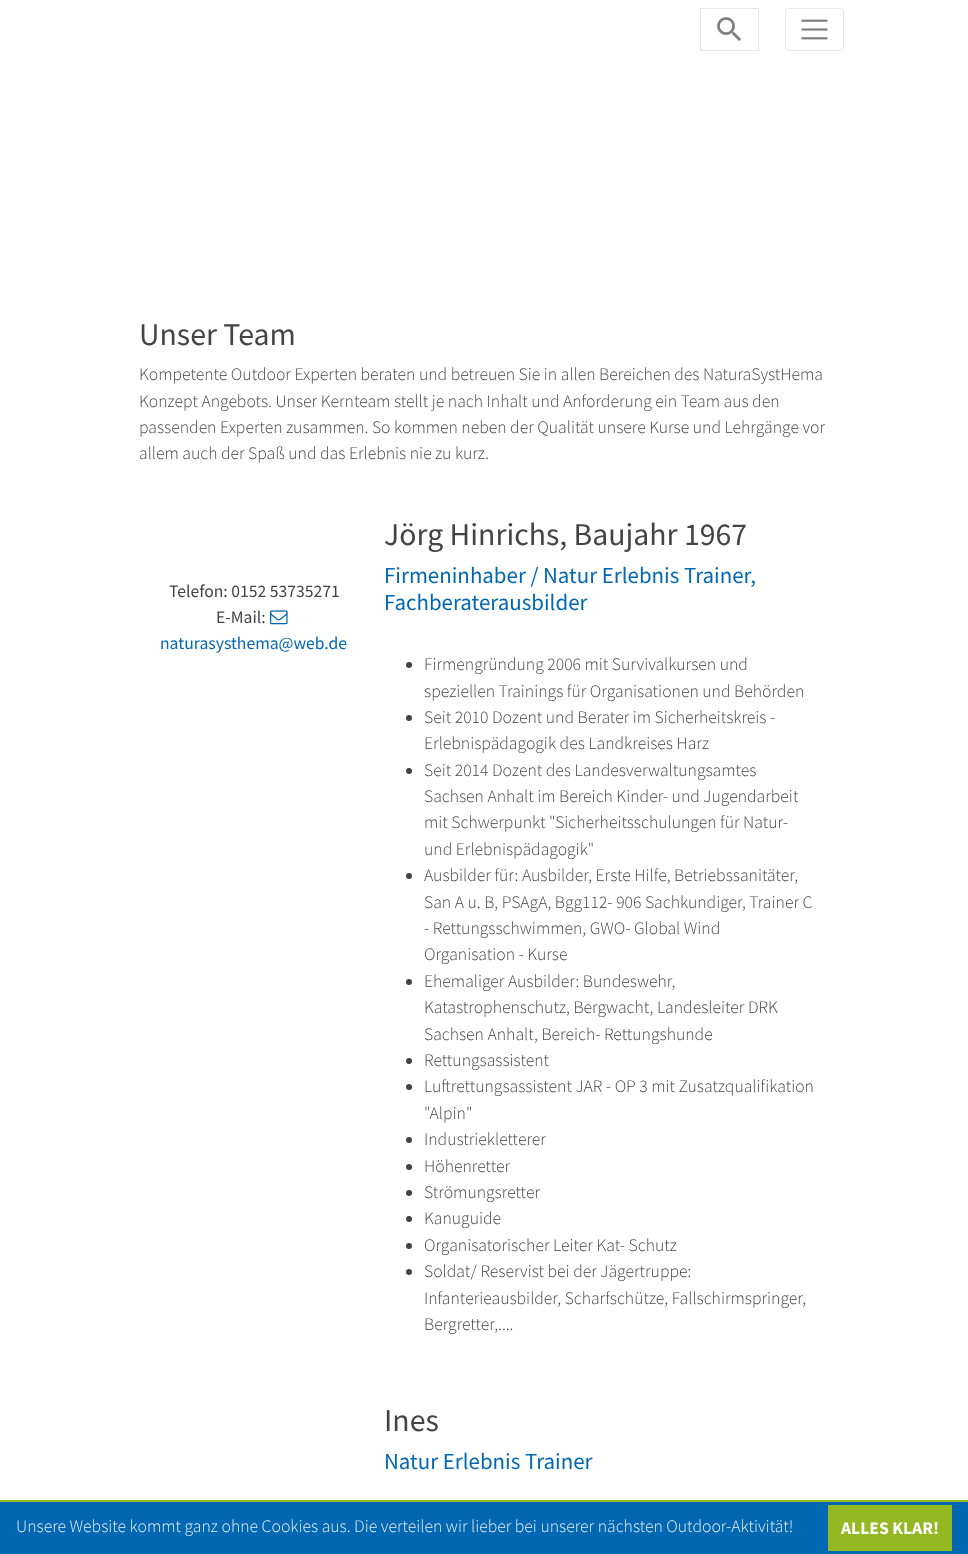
<svg xmlns="http://www.w3.org/2000/svg" width="968" height="1554" viewBox="0 0 968 1554">
  <style>
    .t1 { font: 31.75px Source Sans Pro; fill: #444; }
    .t2 { font: 300 17.6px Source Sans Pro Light; fill: #444; }
    .t3 { font: 17.6px Source Sans Pro; fill: #444; }
    .t4 { font: 17.6px Source Sans Pro; fill: #0068b3; }
    .t5 { font: 22.9px Source Sans Pro; fill: #0068b3; }
    .t6 { font: 300 17.6px Source Sans Pro Light; fill: #eee; }
    .t7 { font: bold 17.6px Source Sans Pro; fill: #fff; }
  </style>
  <rect width="100%" height="100%" fill="#fff"/>
  <rect x="293" y="16" width="7" height="1" fill="#fefdf9"/>
  <rect x="700.5" y="8.5" width="58" height="42" fill="none" stroke="#e6e6e6"/>
  <image x="717" y="17" width="24" height="24" href="images/1.png"/>
  <rect x="785.5" y="8.5" width="58" height="42" rx="3.5" fill="none" stroke="#e6e6e6"/>
  <image x="801" y="19" width="27" height="21" href="images/2.png"/>
  <text x="139" y="345" class="t1">Unser Team</text>
  <text x="139" y="380" class="t2">Kompetente Outdoor Experten beraten und betreuen Sie in allen Bereichen des NaturaSystHema</text>
  <text x="139" y="407" class="t2">Konzept Angebots. Unser Kernteam stellt je nach Inhalt und Anforderung ein Team aus den</text>
  <text x="139" y="433" class="t2">passenden Experten zusammen. So kommen neben der Qualität unsere Kurse und Lehrgänge vor</text>
  <text x="139" y="459" class="t2">allem auch der Spaß und das Erlebnis nie zu kurz.</text>
  <text x="169" y="597" class="t3">Telefon: 0152 53735271</text>
  <text x="216" y="623" class="t3">E-Mail:</text>
  <image x="270" y="610" width="18" height="15" href="images/3.png"/>
  <text x="160" y="649" class="t4">naturasysthema@web.de</text>
  <text x="384" y="545" class="t1">Jörg Hinrichs, Baujahr 1967</text>
  <text x="384" y="583" class="t5">Firmeninhaber / Natur Erlebnis Trainer,</text>
  <text x="384" y="610" class="t5">Fachberaterausbilder</text>
  <circle cx="409" cy="665" r="3" fill="#444"/>
  <text x="424" y="670" class="t2">Firmengründung 2006 mit Survivalkursen und</text>
  <text x="424" y="697" class="t2">speziellen Trainings für Organisationen und Behörden</text>
  <circle cx="409" cy="718" r="3" fill="#444"/>
  <text x="424" y="723" class="t2">Seit 2010 Dozent und Berater im Sicherheitskreis -</text>
  <text x="424" y="749" class="t2">Erlebnispädagogik des Landkreises Harz</text>
  <circle cx="409" cy="771" r="3" fill="#444"/>
  <text x="424" y="776" class="t2">Seit 2014 Dozent des Landesverwaltungsamtes</text>
  <text x="424" y="802" class="t2">Sachsen Anhalt im Bereich Kinder- und Jugendarbeit</text>
  <text x="424" y="828" class="t2">mit Schwerpunkt "Sicherheitsschulungen für Natur-</text>
  <text x="424" y="855" class="t2">und Erlebnispädagogik"</text>
  <circle cx="409" cy="876" r="3" fill="#444"/>
  <text x="424" y="881" class="t2">Ausbilder für: Ausbilder, Erste Hilfe, Betriebssanitäter,</text>
  <text x="424" y="908" class="t2">San A u. B, PSAgA, Bgg112- 906 Sachkundiger, Trainer C</text>
  <text x="424" y="934" class="t2">- Rettungsschwimmen, GWO- Global Wind</text>
  <text x="424" y="960" class="t2">Organisation - Kurse</text>
  <circle cx="409" cy="982" r="3" fill="#444"/>
  <text x="424" y="987" class="t2">Ehemaliger Ausbilder: Bundeswehr,</text>
  <text x="424" y="1013" class="t2">Katastrophenschutz, Bergwacht, Landesleiter DRK</text>
  <text x="424" y="1040" class="t2">Sachsen Anhalt, Bereich- Rettungshunde</text>
  <circle cx="409" cy="1061" r="3" fill="#444"/>
  <text x="424" y="1066" class="t2">Rettungsassistent</text>
  <circle cx="409" cy="1087" r="3" fill="#444"/>
  <text x="424" y="1092" class="t2">Luftrettungsassistent JAR - OP 3 mit Zusatzqualifikation</text>
  <text x="424" y="1119" class="t2">"Alpin"</text>
  <circle cx="409" cy="1140" r="3" fill="#444"/>
  <text x="424" y="1145" class="t2">Industriekletterer</text>
  <circle cx="409" cy="1167" r="3" fill="#444"/>
  <text x="424" y="1172" class="t2">Höhenretter</text>
  <circle cx="409" cy="1193" r="3" fill="#444"/>
  <text x="424" y="1198" class="t2">Strömungsretter</text>
  <circle cx="409" cy="1219" r="3" fill="#444"/>
  <text x="424" y="1224" class="t2">Kanuguide</text>
  <circle cx="409" cy="1246" r="3" fill="#444"/>
  <text x="424" y="1251" class="t2">Organisatorischer Leiter Kat- Schutz</text>
  <circle cx="409" cy="1272" r="3" fill="#444"/>
  <text x="424" y="1277" class="t2">Soldat/ Reservist bei der Jägertruppe:</text>
  <text x="424" y="1304" class="t2">Infanterieausbilder, Scharfschütze, Fallschirmspringer,</text>
  <text x="424" y="1330" class="t2">Bergretter,....</text>
  <text x="384" y="1431" class="t1">Ines</text>
  <text x="384" y="1469" class="t5">Natur Erlebnis Trainer</text>
  <rect x="0" y="1502" width="968" height="52" fill="#0068b3"/>
  <rect x="0" y="1500" width="968" height="2" fill="#93b822"/>
  <text x="16" y="1532" class="t6">Unsere Website kommt ganz ohne Cookies aus. Die verteilen wir lieber bei unserer nächsten Outdoor-Aktivität!</text>
  <rect x="828" y="1505" width="124" height="46" fill="#93b822"/>
  <text x="841" y="1534" class="t7">ALLES KLAR!</text>
</svg>
